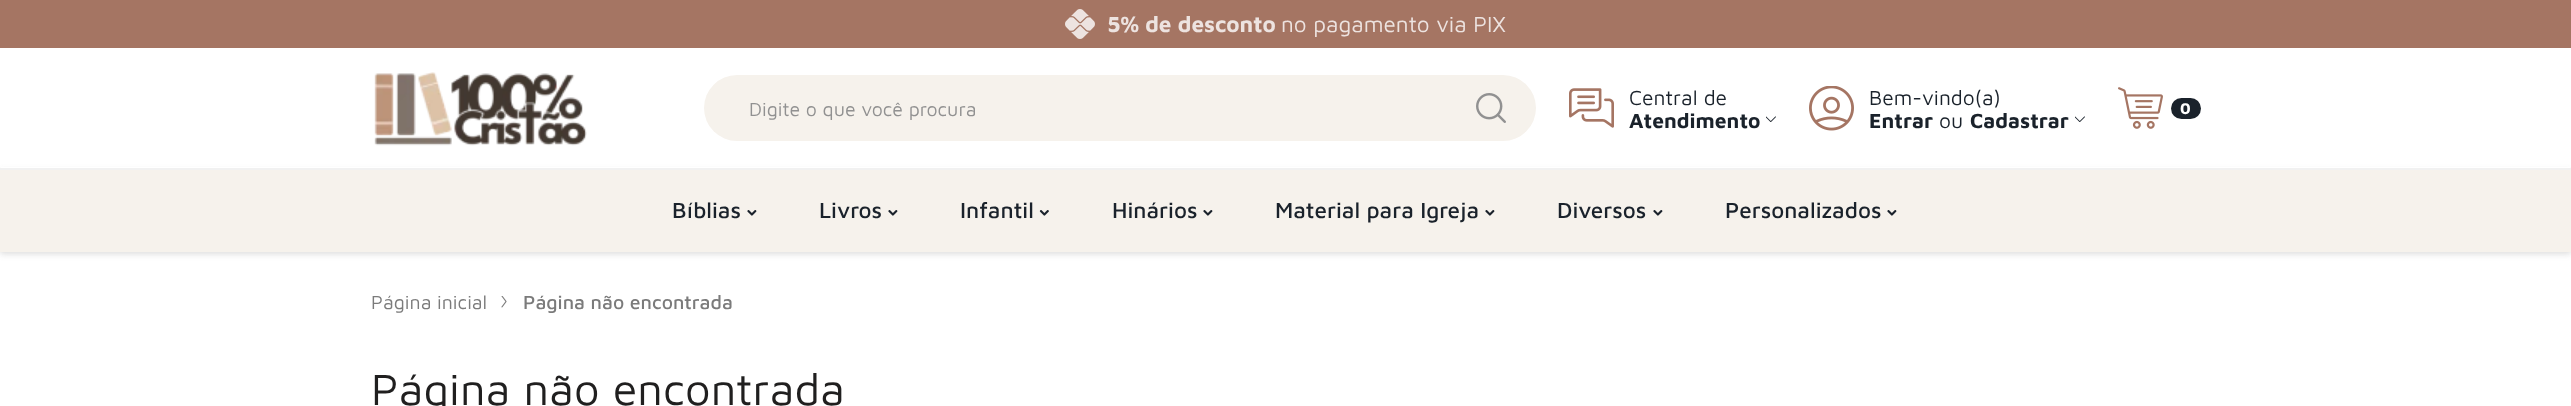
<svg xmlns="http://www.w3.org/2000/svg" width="2571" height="406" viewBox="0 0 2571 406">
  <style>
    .t1 { font: bold 22.5px Maven Pro; fill: #ede3e0; }
    .t2 { font: 22.5px Maven Pro; fill: #ede3e0; }
    .t3 { font: 19.5px Maven Pro; fill: #919191; }
    .t4 { font: 21px Maven Pro; fill: #1a222b; }
    .t5 { font: bold 21px Maven Pro; fill: #1a222b; }
    .t6 { font: bold 16px Maven Pro; fill: #fff; }
    .t7 { font: 500 22.5px Maven Pro; fill: #1a222b; }
    .t8 { font: 19.5px Maven Pro; fill: #7b7b7b; }
    .t9 { font: 500 19.5px Maven Pro; fill: #7b7b7b; }
    .t10 { font: 45px Maven Pro; fill: #201f1f; }
  </style>
  <defs>
    <clipPath id="clip1"><rect x="749" y="96" width="600" height="24"/></clipPath>
  </defs>
  <rect width="100%" height="100%" fill="#fff"/>
  <rect x="0" y="0" width="2571" height="48" fill="#a57563"/>
  <image x="1065" y="9" width="30" height="30" href="images/1.png"/>
  <text x="1107" y="32" class="t1">5% de desconto</text>
  <text x="1281" y="32" class="t2">no pagamento via PIX</text>
  <rect x="0" y="171" width="2571" height="83" fill="#52525233" filter="blur(3px)"/>
  <rect x="1" y="167" width="2569" height="1" fill="#fff"/>
  <rect x="0" y="168" width="2571" height="2" fill="#f1f1f1"/>
  <image x="374" y="72" width="213" height="74" href="images/2.png"/>
  <rect x="704" y="75" width="832" height="66" rx="33" fill="#f6f2ec"/>
  <g clip-path="url(#clip1)">
    <text x="749" y="116" class="t3">Digite o que você procura</text>
  </g>
  <image x="1476" y="93" width="30" height="30" href="images/3.png"/>
  <image x="1569" y="88" width="45" height="40" href="images/4.png"/>
  <text x="1629" y="105" class="t4">Central de</text>
  <text x="1629" y="128" class="t5">Atendimento</text>
  <image x="1766" y="116" width="10" height="6" href="images/5.png"/>
  <image x="1809" y="86" width="45" height="45" href="images/6.png"/>
  <text x="1869" y="105" class="t4">Bem-vindo(a)</text>
  <text x="1869" y="128" class="t5">Entrar</text>
  <text x="1939" y="128" class="t4">ou</text>
  <text x="1970" y="128" class="t5">Cadastrar</text>
  <image x="2075" y="116" width="10" height="6" href="images/5.png"/>
  <image x="2118" y="87" width="45" height="42" href="images/7.png"/>
  <rect x="2171" y="98" width="30" height="21" rx="10.5" fill="#1a222b"/>
  <text x="2180" y="114" class="t6">0</text>
  <rect x="0" y="170" width="2571" height="82" fill="#f6f2ec"/>
  <text x="672" y="218" class="t7">Bíblias</text>
  <image x="747" y="210" width="10" height="6" href="images/8.png"/>
  <text x="819" y="218" class="t7">Livros</text>
  <image x="888" y="210" width="10" height="6" href="images/8.png"/>
  <text x="960" y="218" class="t7">Infantil</text>
  <image x="1039" y="210" width="10" height="6" href="images/9.png"/>
  <text x="1112" y="218" class="t7">Hinários</text>
  <image x="1203" y="210" width="10" height="6" href="images/8.png"/>
  <text x="1275" y="218" class="t7">Material para Igreja</text>
  <image x="1485" y="210" width="10" height="6" href="images/8.png"/>
  <text x="1557" y="218" class="t7">Diversos</text>
  <image x="1653" y="210" width="10" height="6" href="images/8.png"/>
  <text x="1725" y="218" class="t7">Personalizados</text>
  <image x="1887" y="210" width="10" height="6" href="images/8.png"/>
  <text x="371" y="309" class="t8">Página inicial</text>
  <image x="501" y="296" width="6" height="12" href="images/10.png"/>
  <text x="523" y="309" class="t9">Página não encontrada</text>
  <text x="371" y="405" class="t10">Página não encontrada</text>
</svg>
